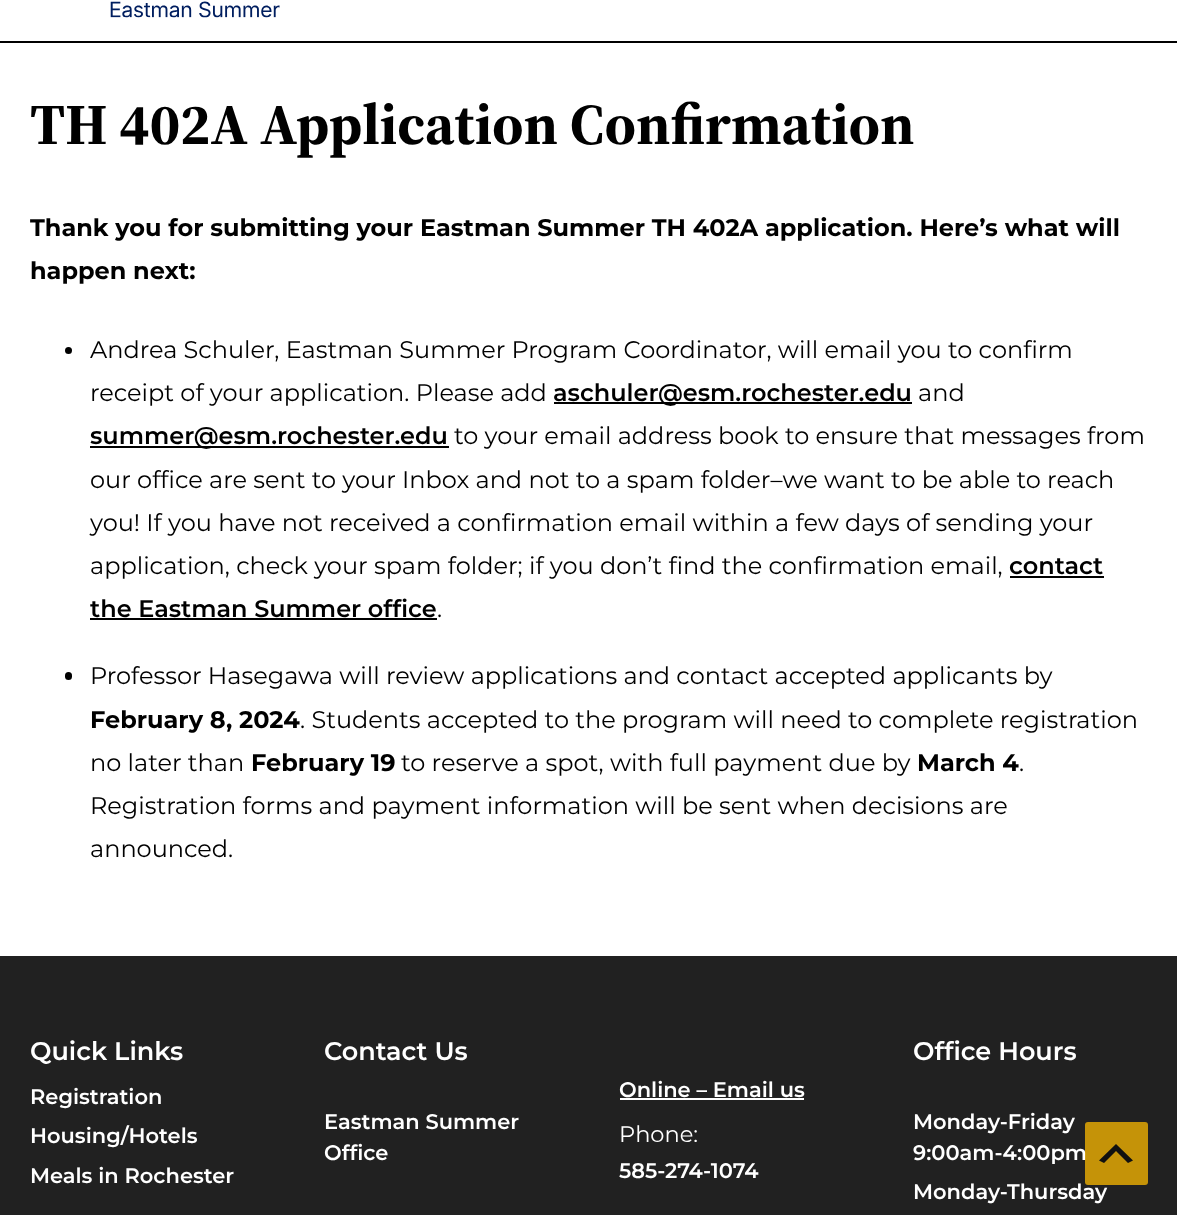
<svg xmlns="http://www.w3.org/2000/svg" width="1177" height="1215" viewBox="0 0 1177 1215">
  <style>
    .t1 { font: bold 57.75px 'Source Serif 4'; fill: #000; }
    .t2 { font: bold 24px Montserrat; fill: #000; }
    .t3 { font: 24px Montserrat; fill: #000; }
    .t4 { font: 600 24px Montserrat; fill: #000; }
    .t5 { font: 600 25.5px Montserrat; fill: #fff; }
    .t6 { font: 600 21px Montserrat; fill: #fff; }
    .t7 { font: 22.5px Montserrat; fill: #fff; }
  </style>
  <rect width="100%" height="100%" fill="#fff"/>
  <rect x="0" y="41" width="1177" height="2" fill="#000"/>
  <image x="110" y="1" width="170" height="17" href="images/1.png"/>
  <text x="30" y="144" class="t1">TH 402A Application Confirmation</text>
  <text x="30" y="236" class="t2">Thank you for submitting your Eastman Summer TH 402A application. Here’s what will</text>
  <text x="30" y="279" class="t2">happen next:</text>
  <circle cx="68.5" cy="350.5" r="3.5" fill="#000"/>
  <text x="90" y="358" class="t3">Andrea Schuler, Eastman Summer Program Coordinator, will email you to confirm</text>
  <text x="90" y="401" class="t3">receipt of your application. Please add</text>
  <rect x="554" y="402" width="358" height="2" fill="#000"/>
  <text x="553" y="401" class="t4">aschuler@esm.rochester.edu</text>
  <text x="918" y="401" class="t3">and</text>
  <rect x="90" y="446" width="359" height="2" fill="#000"/>
  <text x="90" y="444" class="t4">summer@esm.rochester.edu</text>
  <text x="454" y="444" class="t3">to your email address book to ensure that messages from</text>
  <text x="90" y="488" class="t3">our office are sent to your Inbox and not to a spam folder–we want to be able to reach</text>
  <text x="90" y="531" class="t3">you! If you have not received a confirmation email within a few days of sending your</text>
  <text x="90" y="574" class="t3">application, check your spam folder; if you don’t find the confirmation email,</text>
  <text x="1009" y="574" class="t4">contact</text>
  <rect x="1010" y="576" width="94" height="2" fill="#000"/>
  <text x="90" y="617" class="t4">the Eastman Summer office</text>
  <rect x="90" y="618" width="347" height="2" fill="#000"/>
  <text x="437" y="617" class="t3">.</text>
  <rect x="65" y="672" width="7" height="8" rx="3.5" fill="#000"/>
  <text x="90" y="684" class="t3">Professor Hasegawa will review applications and contact accepted applicants by</text>
  <text x="90" y="728" class="t2">February 8, 2024</text>
  <text x="300" y="728" class="t3">. Students accepted to the program will need to complete registration</text>
  <text x="90" y="771" class="t3">no later than</text>
  <text x="251" y="771" class="t2">February 19</text>
  <text x="401" y="771" class="t3">to reserve a spot, with full payment due by</text>
  <text x="917" y="771" class="t2">March 4</text>
  <text x="1019" y="771" class="t3">.</text>
  <text x="90" y="814" class="t3">Registration forms and payment information will be sent when decisions are</text>
  <text x="90" y="857" class="t3">announced.</text>
  <rect x="0" y="956" width="1177" height="259" fill="#212121"/>
  <text x="30" y="1060" class="t5">Quick Links</text>
  <text x="30" y="1104" class="t6">Registration</text>
  <text x="30" y="1143" class="t6">Housing/Hotels</text>
  <text x="30" y="1183" class="t6">Meals in Rochester</text>
  <text x="324" y="1060" class="t5">Contact Us</text>
  <text x="324" y="1129" class="t6">Eastman Summer</text>
  <text x="324" y="1160" class="t6">Office</text>
  <text x="619" y="1097" class="t6">Online – Email us</text>
  <rect x="620" y="1098" width="184" height="2" fill="#fff"/>
  <text x="619" y="1142" class="t7">Phone:</text>
  <text x="619" y="1178" class="t6">585-274-1074</text>
  <text x="913" y="1060" class="t5">Office Hours</text>
  <text x="913" y="1129" class="t6">Monday-Friday</text>
  <text x="913" y="1160" class="t6">9:00am-4:00pm</text>
  <text x="913" y="1199" class="t6">Monday-Thursday</text>
  <rect x="1085" y="1122" width="63" height="63" rx="3" fill="#fcb900bf"/>
  <path d="M1128 1163L1116 1151L1104 1163L1099 1160.5L1116 1144L1133 1160.5Z" fill="#101010"/>
</svg>
